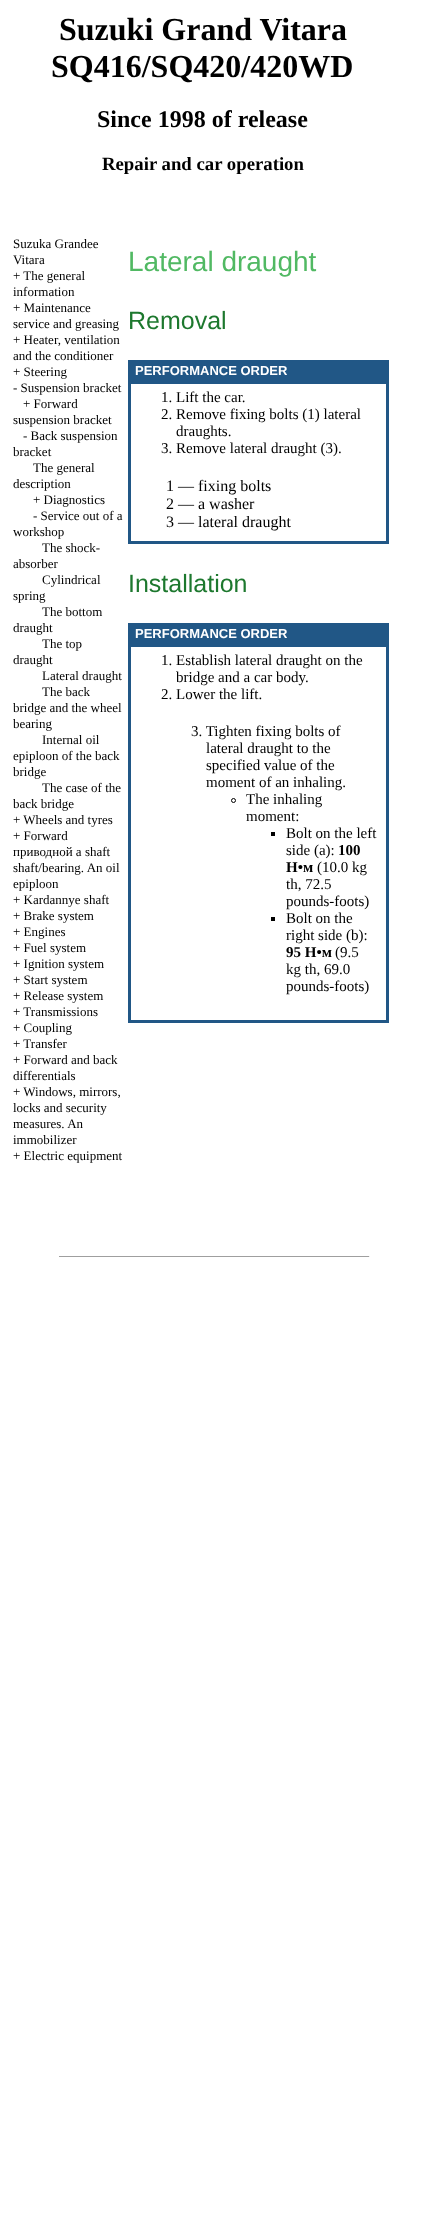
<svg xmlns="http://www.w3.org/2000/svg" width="428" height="2234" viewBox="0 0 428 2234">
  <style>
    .t1 { font: bold 32px Liberation Serif; fill: #000; }
    .t2 { font: bold 24px Liberation Serif; fill: #000; }
    .t3 { font: bold 18.75px Liberation Serif; fill: #000; }
    .t4 { font: 13px Liberation Serif; fill: #000; }
    .t5 { font: 28px Liberation Sans; fill: #51b963; }
    .t6 { font: 25px Liberation Sans; fill: #1d782e; }
    .t7 { font: bold 13px Liberation Sans; fill: #fff; }
    .t8 { font: 15px Liberation Serif; fill: #000; }
    .t9 { font: 16px Liberation Serif; fill: #000; }
    .t10 { font: bold 15px Liberation Serif; fill: #000; }
  </style>
  <rect width="100%" height="100%" fill="#fff"/>
  <text x="59" y="40" class="t1">Suzuki Grand Vitara</text>
  <text x="51" y="77" class="t1">SQ416/SQ420/420WD</text>
  <text x="97" y="127" class="t2">Since 1998 of release</text>
  <text x="102" y="170" class="t3">Repair and car operation</text>
  <text x="13" y="248" class="t4">Suzuka Grandee</text>
  <text x="13" y="264" class="t4">Vitara</text>
  <text x="13" y="280" class="t4">+ The general</text>
  <text x="13" y="296" class="t4">information</text>
  <text x="13" y="312" class="t4">+ Maintenance</text>
  <text x="13" y="328" class="t4">service and greasing</text>
  <text x="13" y="344" class="t4">+ Heater, ventilation</text>
  <text x="13" y="360" class="t4">and the conditioner</text>
  <text x="13" y="376" class="t4">+ Steering</text>
  <text x="13" y="392" class="t4">- Suspension bracket</text>
  <text x="23" y="408" class="t4">+ Forward</text>
  <text x="13" y="424" class="t4">suspension bracket</text>
  <text x="23" y="440" class="t4">- Back suspension</text>
  <text x="13" y="456" class="t4">bracket</text>
  <text x="33" y="472" class="t4">The general</text>
  <text x="13" y="488" class="t4">description</text>
  <text x="33" y="504" class="t4">+ Diagnostics</text>
  <text x="33" y="520" class="t4">- Service out of a</text>
  <text x="13" y="536" class="t4">workshop</text>
  <text x="42" y="552" class="t4">The shock-</text>
  <text x="13" y="568" class="t4">absorber</text>
  <text x="42" y="584" class="t4">Cylindrical</text>
  <text x="13" y="600" class="t4">spring</text>
  <text x="42" y="616" class="t4">The bottom</text>
  <text x="13" y="632" class="t4">draught</text>
  <text x="42" y="648" class="t4">The top</text>
  <text x="13" y="664" class="t4">draught</text>
  <text x="42" y="680" class="t4">Lateral draught</text>
  <text x="42" y="696" class="t4">The back</text>
  <text x="13" y="712" class="t4">bridge and the wheel</text>
  <text x="13" y="728" class="t4">bearing</text>
  <text x="42" y="744" class="t4">Internal oil</text>
  <text x="13" y="760" class="t4">epiploon of the back</text>
  <text x="13" y="776" class="t4">bridge</text>
  <text x="42" y="792" class="t4">The case of the</text>
  <text x="13" y="808" class="t4">back bridge</text>
  <text x="13" y="824" class="t4">+ Wheels and tyres</text>
  <text x="13" y="840" class="t4">+ Forward</text>
  <text x="13" y="856" class="t4">приводной a shaft</text>
  <text x="13" y="872" class="t4">shaft/bearing. An oil</text>
  <text x="13" y="888" class="t4">epiploon</text>
  <text x="13" y="904" class="t4">+ Kardannye shaft</text>
  <text x="13" y="920" class="t4">+ Brake system</text>
  <text x="13" y="936" class="t4">+ Engines</text>
  <text x="13" y="952" class="t4">+ Fuel system</text>
  <text x="13" y="968" class="t4">+ Ignition system</text>
  <text x="13" y="984" class="t4">+ Start system</text>
  <text x="13" y="1000" class="t4">+ Release system</text>
  <text x="13" y="1016" class="t4">+ Transmissions</text>
  <text x="13" y="1032" class="t4">+ Coupling</text>
  <text x="13" y="1048" class="t4">+ Transfer</text>
  <text x="13" y="1064" class="t4">+ Forward and back</text>
  <text x="13" y="1080" class="t4">differentials</text>
  <text x="13" y="1096" class="t4">+ Windows, mirrors,</text>
  <text x="13" y="1112" class="t4">locks and security</text>
  <text x="13" y="1128" class="t4">measures. An</text>
  <text x="13" y="1144" class="t4">immobilizer</text>
  <text x="13" y="1160" class="t4">+ Electric equipment</text>
  <text x="128" y="271" class="t5">Lateral draught</text>
  <text x="128" y="329" class="t6">Removal</text>
  <rect x="128" y="360" width="261" height="184" fill="#215786"/>
  <text x="135" y="375" class="t7">PERFORMANCE ORDER</text>
  <rect x="131" y="384" width="255" height="157" fill="#fff"/>
  <text x="161" y="402" class="t8">1. Lift the car.</text>
  <text x="161" y="419" class="t8">2. Remove fixing bolts (1) lateral</text>
  <text x="176" y="436" class="t8">draughts.</text>
  <text x="161" y="453" class="t8">3. Remove lateral draught (3).</text>
  <text x="166" y="491" class="t9">1 — fixing bolts</text>
  <text x="166" y="509" class="t9">2 — a washer</text>
  <text x="166" y="527" class="t9">3 — lateral draught</text>
  <text x="128" y="592" class="t6">Installation</text>
  <rect x="128" y="623" width="261" height="400" fill="#215786"/>
  <text x="135" y="638" class="t7">PERFORMANCE ORDER</text>
  <rect x="131" y="647" width="255" height="373" fill="#fff"/>
  <text x="161" y="665" class="t8">1. Establish lateral draught on the</text>
  <text x="176" y="682" class="t8">bridge and a car body.</text>
  <text x="161" y="699" class="t8">2. Lower the lift.</text>
  <text x="191" y="736" class="t8">3. Tighten fixing bolts of</text>
  <text x="206" y="753" class="t8">lateral draught to the</text>
  <text x="206" y="770" class="t8">specified value of the</text>
  <text x="206" y="787" class="t8">moment of an inhaling.</text>
  <circle cx="233.5" cy="800.5" r="2" fill="none" stroke="#000"/>
  <text x="246" y="804" class="t8">The inhaling</text>
  <text x="246" y="821" class="t8">moment:</text>
  <rect x="271" y="832" width="4" height="4" fill="#000"/>
  <text x="286" y="838" class="t8">Bolt on the left</text>
  <text x="286" y="855" class="t8">side (a):</text>
  <text x="338" y="855" class="t10">100</text>
  <text x="286" y="872" class="t10">Н•м</text>
  <text x="317" y="872" class="t8">(10.0 kg</text>
  <text x="286" y="889" class="t8">th, 72.5</text>
  <text x="286" y="906" class="t8">pounds-foots)</text>
  <rect x="271" y="917" width="4" height="4" fill="#000"/>
  <text x="286" y="923" class="t8">Bolt on the</text>
  <text x="286" y="940" class="t8">right side (b):</text>
  <text x="286" y="957" class="t10">95 Н•м</text>
  <text x="335" y="957" class="t8">(9.5</text>
  <text x="286" y="974" class="t8">kg th, 69.0</text>
  <text x="286" y="991" class="t8">pounds-foots)</text>
  <rect x="59" y="1256" width="311" height="1" fill="#9f9f9f"/>
  <rect x="369" y="1256" width="1" height="1" fill="#eee"/>
</svg>
